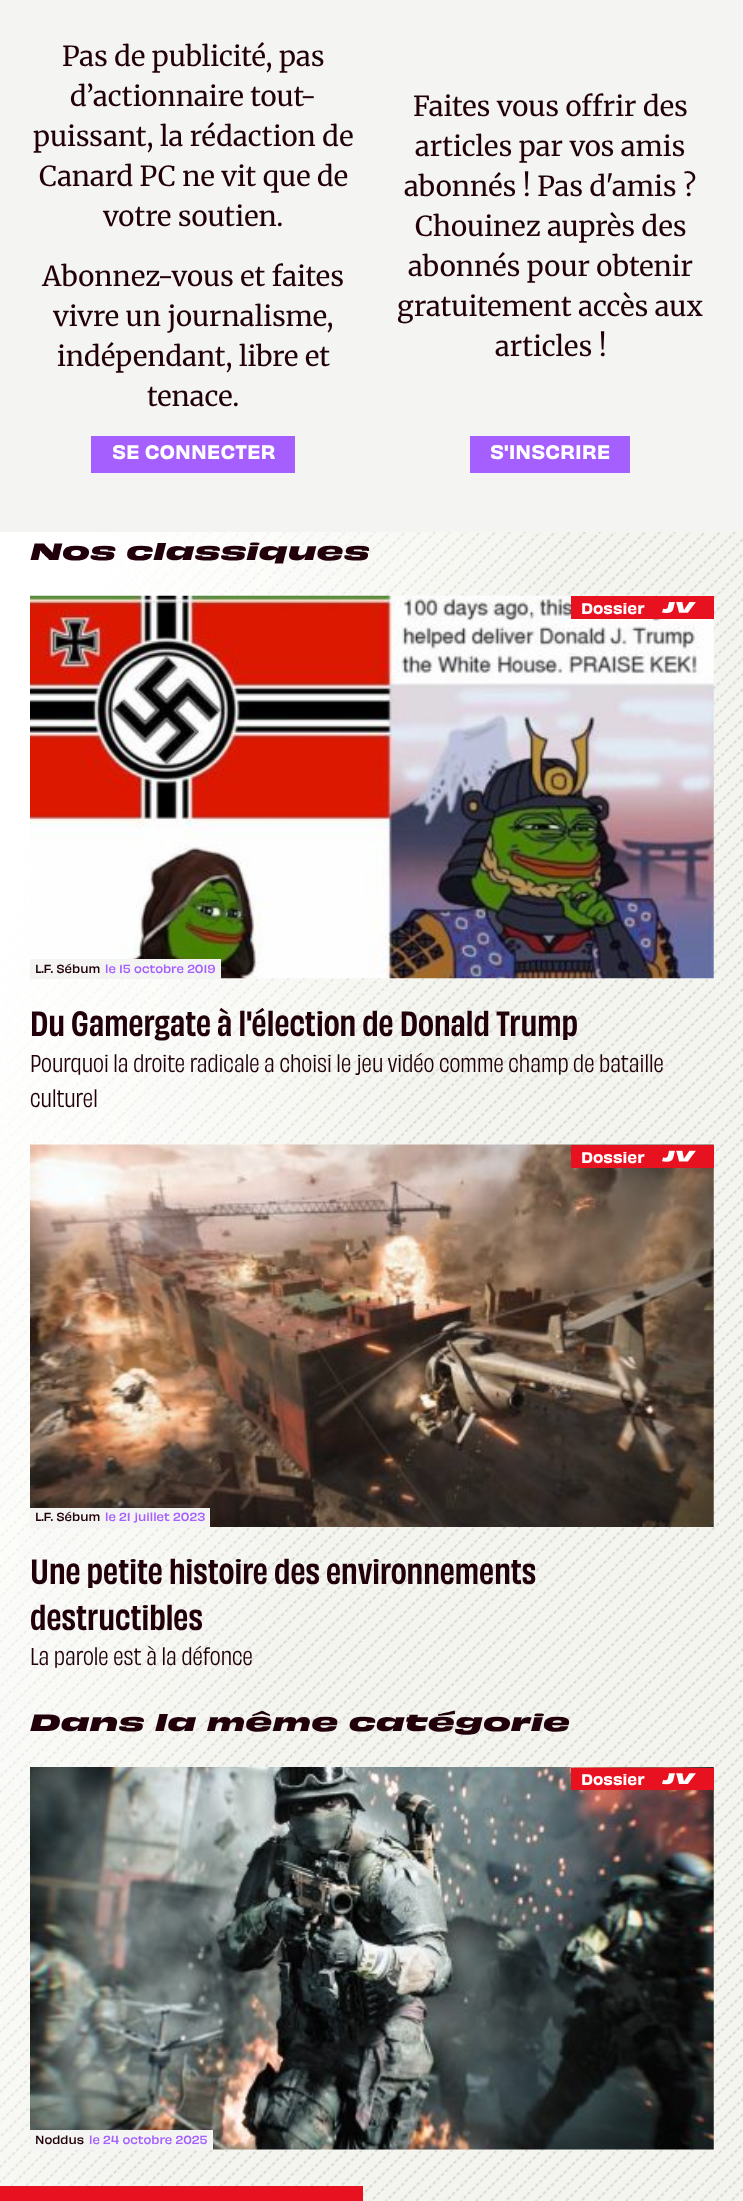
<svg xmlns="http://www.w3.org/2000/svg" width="743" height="2201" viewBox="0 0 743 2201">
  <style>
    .t1 { font: 300 27.5px Merriweather; fill: #21000b; }
    .t2 { font: 600 18.25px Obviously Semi; fill: #fff; }
    .t3 { font: italic bold 22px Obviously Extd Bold; fill: #21000b; }
    .t4 { font: 600 14.5px Obviously Semi; fill: #fff; }
    .t5 { font: 600 11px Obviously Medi; fill: #21000b; }
    .t6 { font: 600 11px Obviously Medi; fill: #a55fff; }
    .t7 { font: 500 32.75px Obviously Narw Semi; fill: #21000b; }
    .t8 { font: 500 22.8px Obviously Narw; fill: #21000b; }
  </style>
  <rect width="100%" height="100%" fill="#f4f4f2"/>
  <text x="62" y="66" class="t1">Pas de publicité, pas</text>
  <text x="70" y="106" class="t1">d’actionnaire tout-</text>
  <text x="33" y="146" class="t1">puissant, la rédaction de</text>
  <text x="39" y="186" class="t1">Canard PC ne vit que de</text>
  <text x="103" y="226" class="t1">votre soutien.</text>
  <text x="42" y="286" class="t1">Abonnez-vous et faites</text>
  <text x="53" y="326" class="t1">vivre un journalisme,</text>
  <text x="57" y="366" class="t1">indépendant, libre et</text>
  <text x="147" y="406" class="t1">tenace.</text>
  <rect x="91" y="436" width="204" height="37" fill="#a55fff"/>
  <text x="112" y="459" class="t2">SE CONNECTER</text>
  <text x="413" y="116" class="t1">Faites vous offrir des</text>
  <text x="415" y="156" class="t1">articles par vos amis</text>
  <text x="404" y="196" class="t1">abonnés ! Pas d'amis ?</text>
  <text x="415" y="236" class="t1">Chouinez auprès des</text>
  <text x="408" y="276" class="t1">abonnés pour obtenir</text>
  <text x="397" y="316" class="t1">gratuitement accès aux</text>
  <text x="495" y="356" class="t1">articles !</text>
  <rect x="470" y="436" width="160" height="37" fill="#a55fff"/>
  <text x="490" y="459" class="t2">S'INSCRIRE</text>
  <image x="0" y="532" width="743" height="1669" href="images/1.png"/>
  <text x="30" y="560" class="t3">Nos classiques</text>
  <image x="30" y="595" width="684" height="384" href="images/2.png"/>
  <rect x="571" y="596" width="143" height="23" fill="#e8111f"/>
  <text x="581" y="614" class="t4">Dossier</text>
  <image x="662" y="602" width="34" height="11" href="images/3.png"/>
  <rect x="30" y="959" width="191" height="20" fill="#f4f4f2"/>
  <text x="35" y="973" class="t5">L.F. Sébum</text>
  <text x="105" y="973" class="t6">le 15 octobre 2019</text>
  <text x="30" y="1036" class="t7">Du Gamergate à l'élection de Donald Trump</text>
  <text x="30" y="1072" class="t8">Pourquoi la droite radicale a choisi le jeu vidéo comme champ de bataille</text>
  <text x="30" y="1107" class="t8">culturel</text>
  <image x="30" y="1144" width="684" height="383" href="images/4.png"/>
  <rect x="571" y="1145" width="143" height="23" fill="#e8111f"/>
  <text x="581" y="1163" class="t4">Dossier</text>
  <image x="662" y="1150" width="34" height="12" href="images/5.png"/>
  <rect x="30" y="1508" width="180" height="20" fill="#f4f4f2"/>
  <text x="35" y="1521" class="t5">L.F. Sébum</text>
  <text x="105" y="1521" class="t6">le 21 juillet 2023</text>
  <text x="30" y="1584" class="t7">Une petite histoire des environnements</text>
  <text x="30" y="1630" class="t7">destructibles</text>
  <text x="30" y="1665" class="t8">La parole est à la défonce</text>
  <text x="30" y="1731" class="t3">Dans la même catégorie</text>
  <image x="30" y="1767" width="684" height="383" href="images/6.png"/>
  <rect x="571" y="1768" width="143" height="22" fill="#e8111f"/>
  <text x="581" y="1785" class="t4">Dossier</text>
  <image x="662" y="1773" width="34" height="12" href="images/7.png"/>
  <rect x="30" y="2130" width="183" height="20" fill="#f4f4f2"/>
  <text x="35" y="2144" class="t5">Noddus</text>
  <text x="89" y="2144" class="t6">le 24 octobre 2025</text>
  <rect x="0" y="2186" width="363" height="15" fill="#e8111f"/>
</svg>
